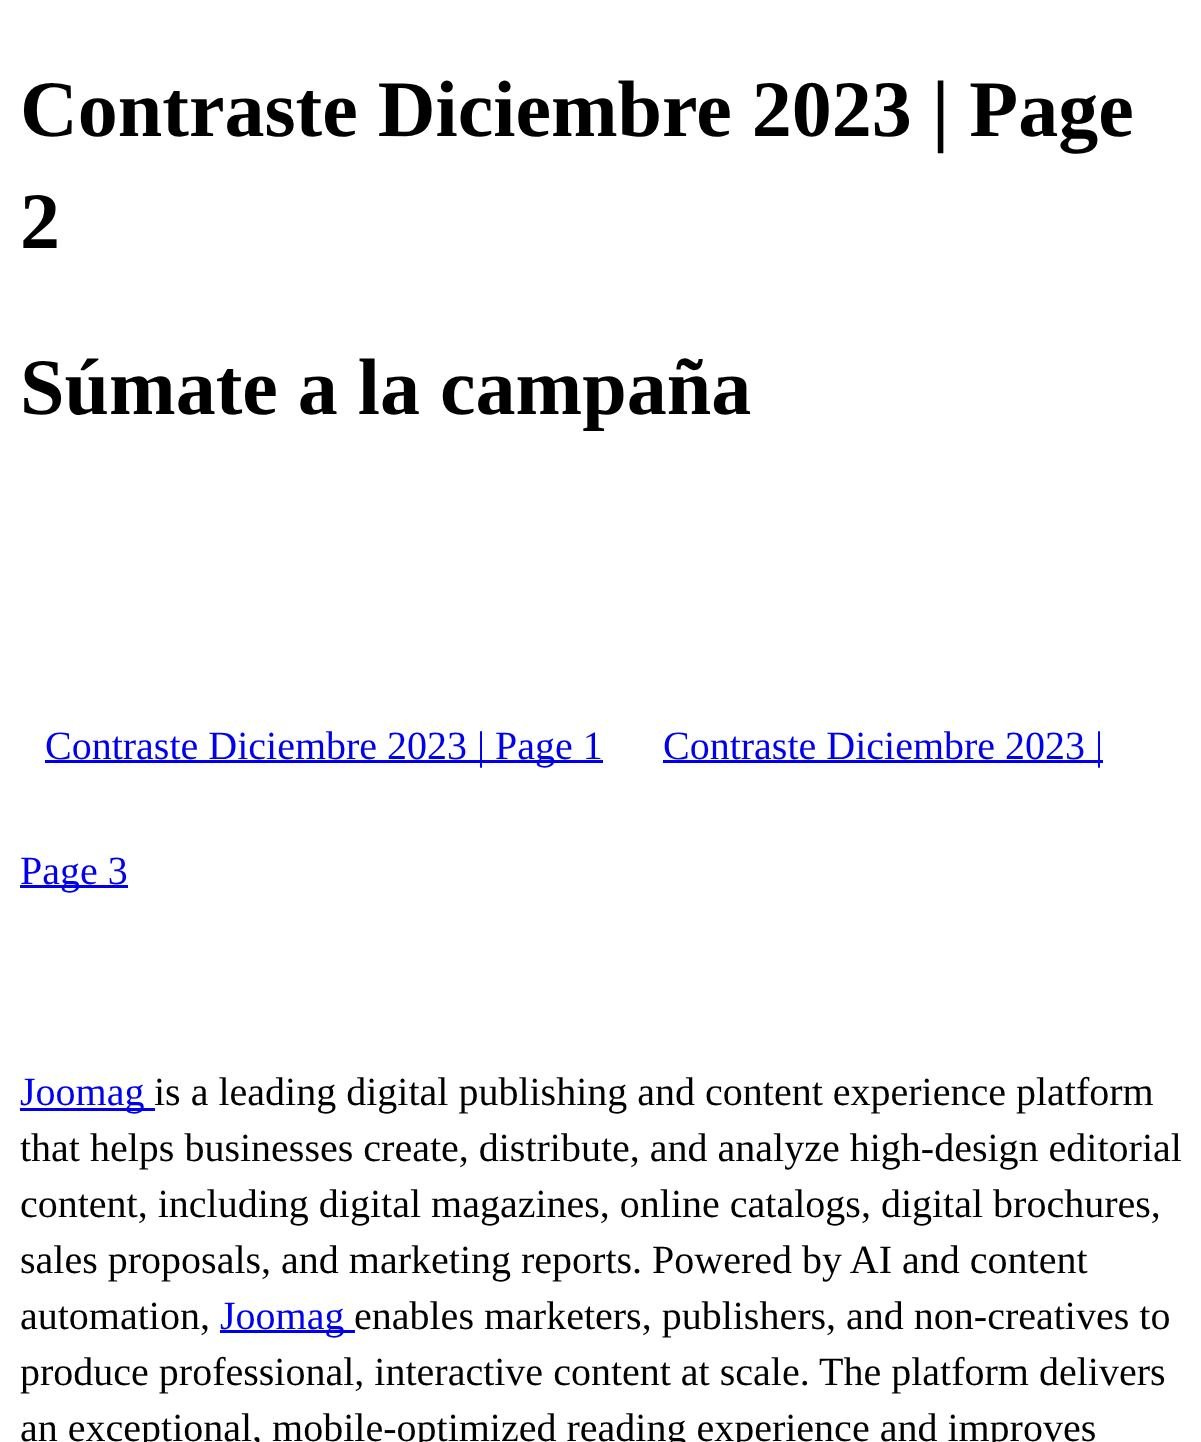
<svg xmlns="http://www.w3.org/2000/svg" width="1201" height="1442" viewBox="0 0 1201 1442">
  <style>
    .t1 { font: bold 80px Liberation Serif; fill: #000; }
    .t2 { font: 40px Liberation Serif; fill: #00e; }
    .t3 { font: 40px Liberation Serif; fill: #000; }
  </style>
  <rect width="100%" height="100%" fill="#fff"/>
  <text x="20" y="136" class="t1">Contraste Diciembre 2023 | Page</text>
  <text x="20" y="248" class="t1">2</text>
  <text x="20" y="414" class="t1">Súmate a la campaña</text>
  <rect x="45" y="760" width="558" height="3" fill="#00e"/>
  <text x="45" y="759" class="t2">Contraste Diciembre 2023 | Page 1</text>
  <rect x="663" y="760" width="440" height="3" fill="#00e"/>
  <text x="663" y="759" class="t2">Contraste Diciembre 2023 |</text>
  <rect x="20" y="885" width="108" height="3" fill="#00e"/>
  <text x="20" y="884" class="t2">Page 3</text>
  <rect x="20" y="1108" width="135" height="3" fill="#00e"/>
  <text x="20" y="1105" class="t2">Joomag</text>
  <text x="154" y="1105" class="t3">is a leading digital publishing and content experience platform</text>
  <text x="20" y="1161" class="t3">that helps businesses create, distribute, and analyze high-design editorial</text>
  <text x="20" y="1217" class="t3">content, including digital magazines, online catalogs, digital brochures,</text>
  <text x="20" y="1273" class="t3">sales proposals, and marketing reports. Powered by AI and content</text>
  <text x="20" y="1329" class="t3">automation,</text>
  <rect x="220" y="1330" width="135" height="3" fill="#00e"/>
  <text x="220" y="1329" class="t2">Joomag</text>
  <text x="354" y="1329" class="t3">enables marketers, publishers, and non-creatives to</text>
  <text x="20" y="1385" class="t3">produce professional, interactive content at scale.</text>
  <text x="819" y="1385" class="t3">The platform delivers</text>
  <text x="20" y="1441" class="t3">an exceptional, mobile-optimized reading experience and improves</text>
</svg>
